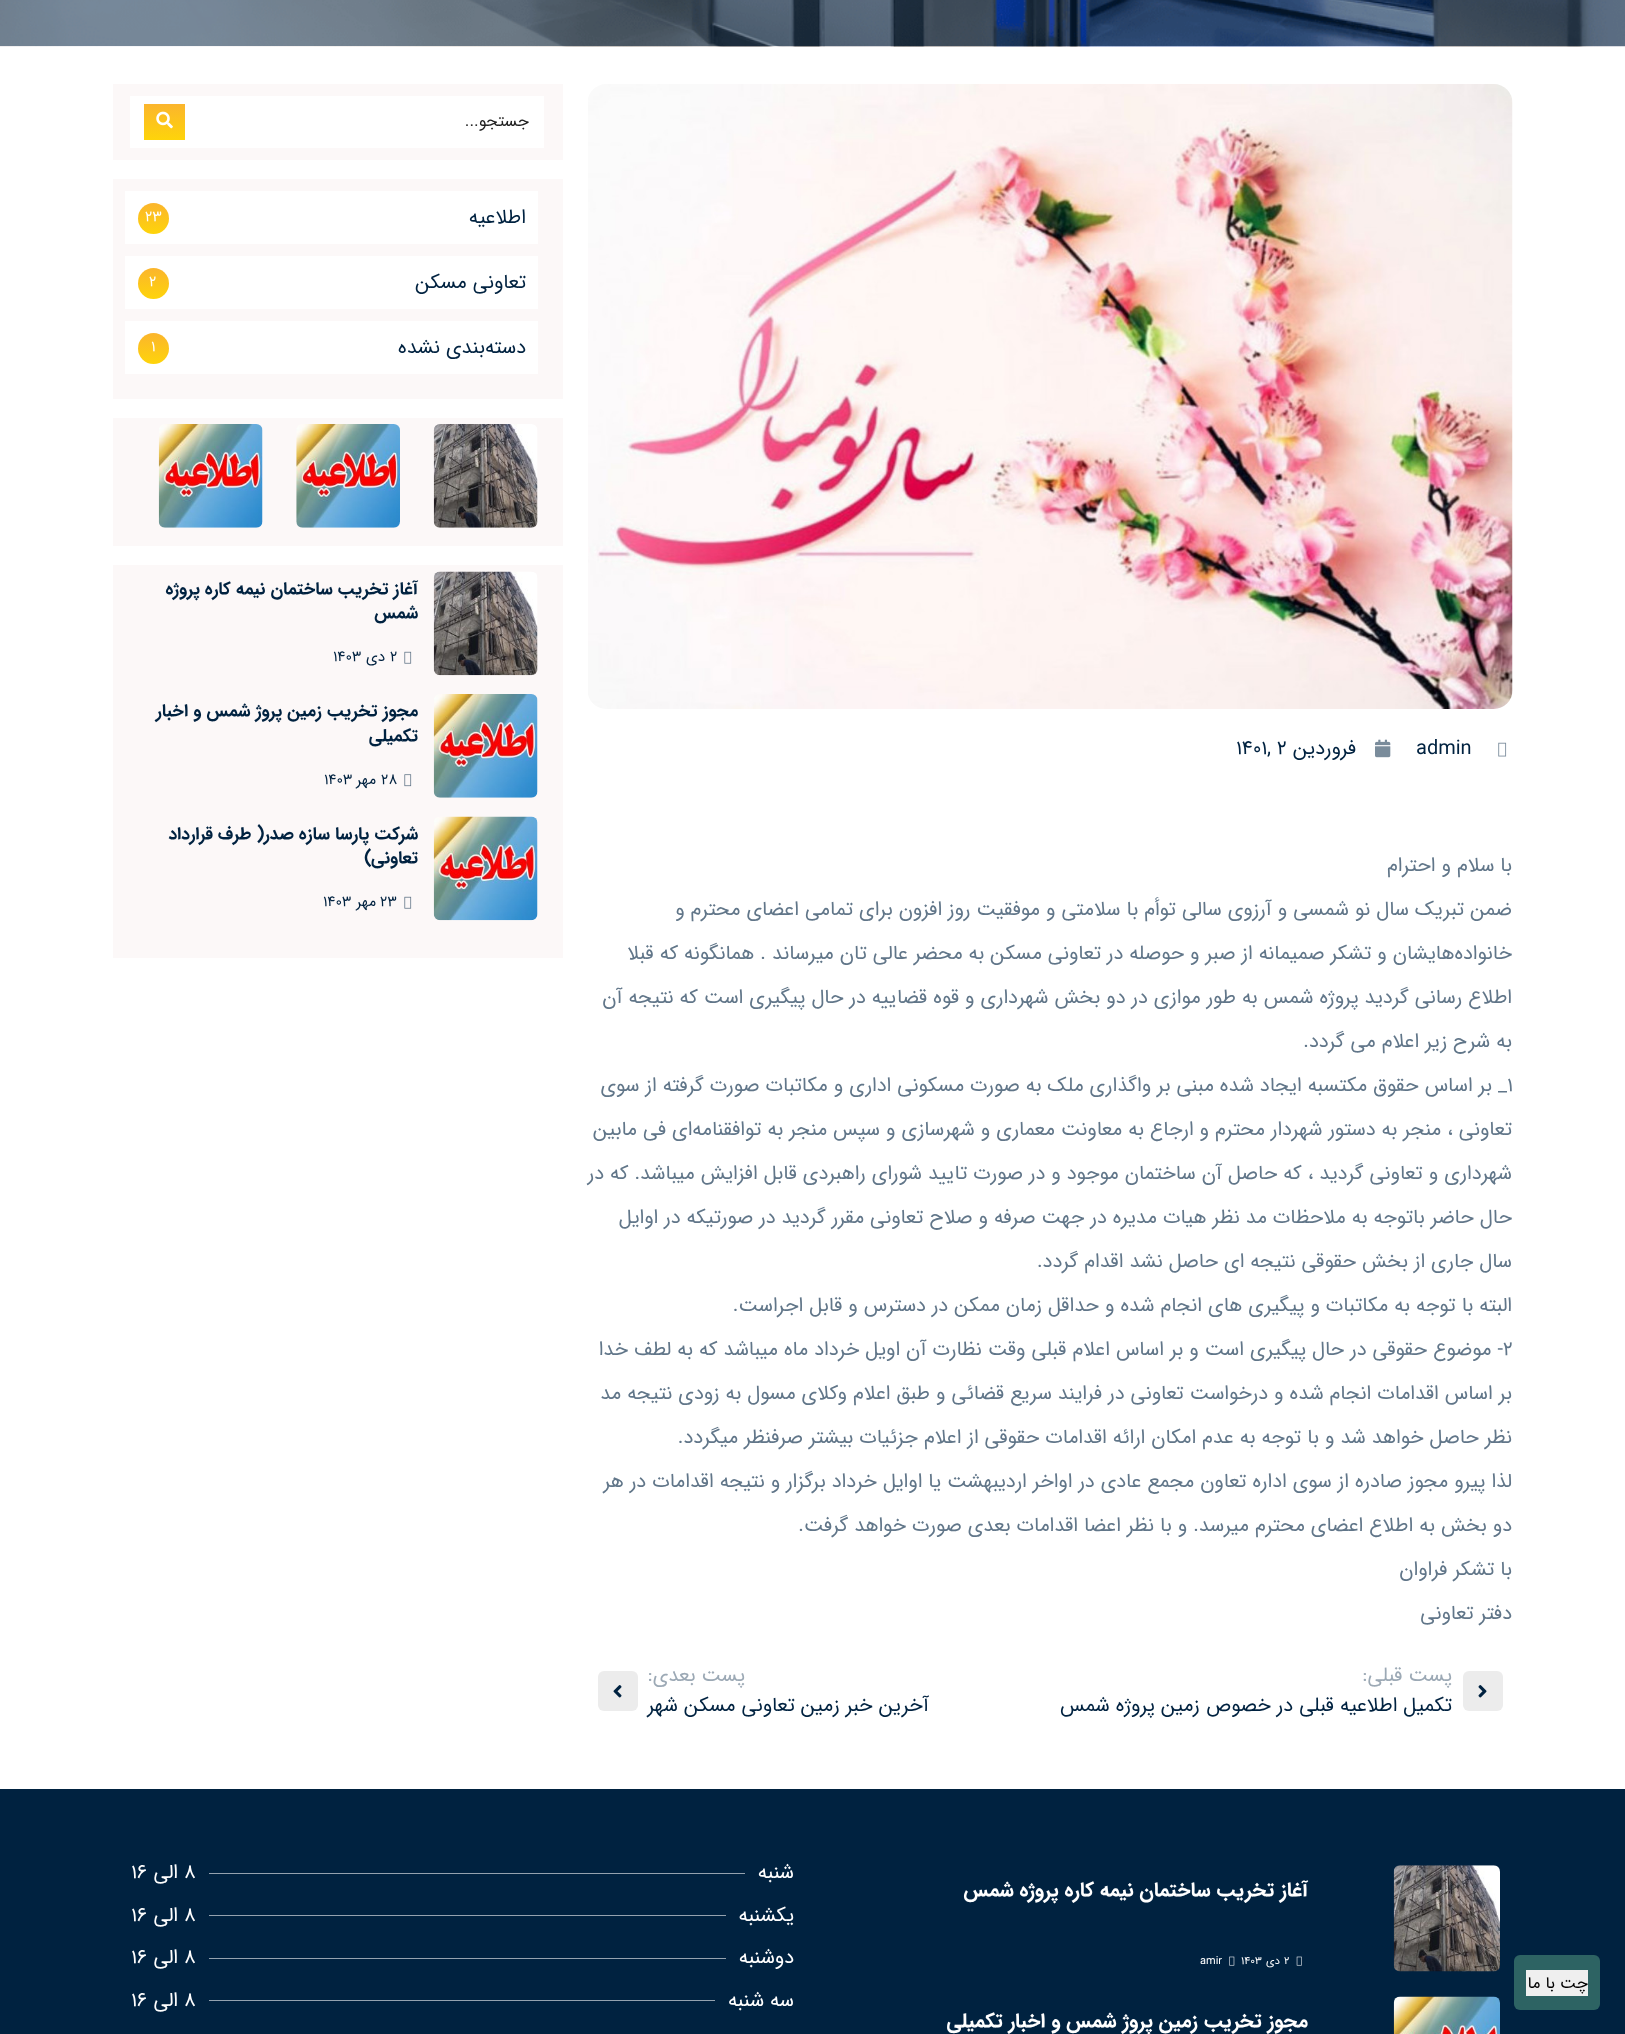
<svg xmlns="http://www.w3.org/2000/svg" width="1625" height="2034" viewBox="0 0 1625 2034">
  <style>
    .t1 { font: 16.5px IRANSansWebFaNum; direction: rtl; fill: #1f1f1f; }
    .t2 { font: 20px IRANSansWebFaNum; direction: rtl; fill: #002240; }
    .t3 { font: 15px IRANSansWebFaNum; fill: #fff; }
    .t4 { font: bold 17.5px IRANSansWebFaNum; direction: rtl; fill: #002240; }
    .t5 { font: 15px IRANSansWebFaNum; fill: #002240; }
    .t6 { font: 15px IRANSansWebFaNum; direction: rtl; fill: #002240; }
    .t7 { font: 20px IRANSansWebFaNum; fill: #002240; }
    .t8 { font: 20px IRANSansWebFaNum; direction: rtl; fill: #617689; }
    .t9 { font: 20px IRANSansWebFaNum; fill: #617689; }
    .t10 { font: 20px IRANSansWebFaNum; direction: rtl; fill: #9ca9b5; }
    .t11 { font: 16.5px IRANSansWebFaNum; direction: rtl; fill: #000; }
    .t12 { font: bold 20px IRANSansWebFaNum; direction: rtl; fill: #fff; }
    .t13 { font: 11px IRANSansWebFaNum; fill: #fff; }
    .t14 { font: 11px IRANSansWebFaNum; direction: rtl; fill: #fff; }
    .t15 { font: 20px IRANSansWebFaNum; direction: rtl; fill: #fff; }
    .t16 { font: 20px IRANSansWebFaNum; fill: #fff; }
  </style>
  <defs>
    <linearGradient id="g1" gradientUnits="userSpaceOnUse" x1="164" y1="104" x2="164" y2="140"><stop offset="0" stop-color="#fbb52d"/><stop offset="1" stop-color="#fed40a"/></linearGradient>
    <linearGradient id="g2" gradientUnits="userSpaceOnUse" x1="153" y1="203" x2="153" y2="234"><stop offset="0" stop-color="#fbb52d"/><stop offset="1" stop-color="#fed40a"/></linearGradient>
    <linearGradient id="g3" gradientUnits="userSpaceOnUse" x1="153" y1="268" x2="153" y2="299"><stop offset="0" stop-color="#fbb52d"/><stop offset="1" stop-color="#fed40a"/></linearGradient>
    <linearGradient id="g4" gradientUnits="userSpaceOnUse" x1="153" y1="333" x2="153" y2="364"><stop offset="0" stop-color="#fbb52d"/><stop offset="1" stop-color="#fed40a"/></linearGradient>
  </defs>
  <rect width="100%" height="100%" fill="#fff"/>
  <image x="0" y="0" width="1625" height="47" href="images/1.png"/>
  <rect x="113" y="84" width="450" height="76" fill="#fcf8f8"/>
  <rect x="130" y="96" width="414" height="52" fill="#fff"/>
  <text x="529" y="126" class="t1">جستجو...</text>
  <rect x="144" y="104" width="41" height="36" fill="url(#g1)"/>
  <image x="156" y="111" width="17" height="18" href="images/2.png"/>
  <rect x="113" y="179" width="450" height="220" fill="#fcf8f8"/>
  <rect x="125" y="191" width="413" height="53" fill="#fff"/>
  <text x="526" y="223" class="t2">اطلاعیه</text>
  <circle cx="153.5" cy="218.5" r="15.5" fill="url(#g2)"/>
  <text x="145" y="221" class="t3">23</text>
  <rect x="125" y="256" width="413" height="53" fill="#fff"/>
  <text x="526" y="288" class="t2">تعاونی مسکن</text>
  <circle cx="153.5" cy="283.5" r="15.5" fill="url(#g3)"/>
  <text x="149" y="286" class="t3">2</text>
  <rect x="125" y="321" width="413" height="53" fill="#fff"/>
  <text x="526" y="353" class="t2">دسته‌بندی نشده</text>
  <circle cx="153.5" cy="348.5" r="15.5" fill="url(#g4)"/>
  <text x="151" y="351" class="t3">1</text>
  <rect x="113" y="418" width="450" height="128" fill="#fcf8f8"/>
  <image x="433" y="424" width="105" height="104" href="images/3.png"/>
  <image x="296" y="424" width="104" height="104" href="images/4.png"/>
  <image x="158" y="424" width="105" height="104" href="images/5.png"/>
  <rect x="113" y="565" width="450" height="393" fill="#fcf8f8"/>
  <image x="433" y="571" width="105" height="105" href="images/6.png"/>
  <text x="418" y="594" class="t4">آغاز تخریب ساختمان نیمه کاره پروژه</text>
  <text x="418" y="618" class="t4">شمس</text>
  <image x="404" y="651" width="8" height="13" href="images/7.png"/>
  <text x="390" y="661" class="t5">۲</text>
  <text x="385" y="661" class="t6">دی</text>
  <text x="333" y="661" class="t5">۱۴۰۳</text>
  <image x="433" y="694" width="105" height="104" href="images/8.png"/>
  <text x="418" y="716" class="t4">مجوز تخریب زمین پروژ شمس و اخبار</text>
  <text x="418" y="741" class="t4">تکمیلی</text>
  <image x="404" y="774" width="8" height="13" href="images/9.png"/>
  <text x="381" y="784" class="t5">۲۸</text>
  <text x="376" y="784" class="t6">مهر</text>
  <text x="324" y="784" class="t5">۱۴۰۳</text>
  <image x="433" y="816" width="105" height="105" href="images/10.png"/>
  <text x="418" y="839" class="t4">شرکت پارسا سازه صدر( طرف قرارداد</text>
  <text x="418" y="863" class="t4">تعاونی)</text>
  <image x="404" y="896" width="8" height="13" href="images/7.png"/>
  <text x="380" y="906" class="t5">۲۳</text>
  <text x="376" y="906" class="t6">مهر</text>
  <text x="323" y="906" class="t5">۱۴۰۳</text>
  <image x="588" y="84" width="925" height="625" href="images/11.png"/>
  <image x="1498" y="742" width="9" height="15" href="images/12.png"/>
  <text x="1416" y="754" class="t7">admin</text>
  <image x="1375" y="739" width="16" height="19" href="images/13.png"/>
  <text x="1356" y="754" class="t2">فروردین</text>
  <text x="1236" y="754" class="t7">۱۴۰۱, ۲</text>
  <text x="1512" y="871" class="t8">با سلام و احترام</text>
  <text x="1512" y="915" class="t8">ضمن تبریک سال نو شمسی و آرزوی سالی توأم با سلامتی و موفقیت روز افزون برای تمامی اعضای محترم و</text>
  <text x="1512" y="959" class="t8">خانواده‌هایشان و تشکر صمیمانه از صبر و حوصله در تعاونی مسکن به محضر ‌عالی تان میرساند . همانگونه که قبلا</text>
  <text x="1512" y="1003" class="t8">اطلاع رسانی گردید پروژه شمس به طور موازی در دو بخش شهرداری و قوه قضاییه در حال پیگیری است که نتیجه آن</text>
  <text x="1512" y="1047" class="t8">به شرح زیر اعلام می گردد.</text>
  <text x="1507" y="1091" class="t9">۱</text>
  <text x="1507" y="1091" class="t8">_ بر اساس حقوق مکتسبه ایجاد شده مبنی بر واگذاری ملک به صورت مسکونی اداری و مکاتبات صورت گرفته از سوی</text>
  <text x="1512" y="1135" class="t8">تعاونی ، منجر به دستور شهردار محترم و ارجاع به معاونت معماری و شهرسازی و سپس منجر به توافقنامه‌ای فی مابین</text>
  <text x="1512" y="1179" class="t8">شهرداری و تعاونی گردید ، که حاصل آن ساختمان موجود و در صورت تایید شورای راهبردی قابل افزایش میباشد. که در</text>
  <text x="1512" y="1223" class="t8">حال حاضر باتوجه به ملاحظات مد نظر هیات مدیره در جهت صرفه و صلاح تعاونی مقرر گردید در صورتیکه در اوایل</text>
  <text x="1512" y="1267" class="t8">سال جاری از بخش حقوقی نتیجه ای حاصل نشد اقدام گردد.</text>
  <text x="1512" y="1311" class="t8">البته با توجه به مکاتبات و پیگیری های انجام شده و حداقل زمان ممکن در دسترس و قابل اجراست.</text>
  <text x="1503" y="1355" class="t9">۲</text>
  <text x="1503" y="1355" class="t8">- موضوع حقوقی در حال پیگیری است و بر اساس اعلام قبلی وقت نظارت آن اویل خرداد ماه میباشد که به لطف خدا</text>
  <text x="1512" y="1399" class="t8">بر اساس اقدامات انجام شده و درخواست تعاونی در فرایند سریع قضائی و طبق اعلام وکلای مسول به زودی نتیجه مد</text>
  <text x="1512" y="1443" class="t8">نظر حاصل خواهد شد و با توجه به عدم امکان ارائه اقدامات حقوقی از اعلام جزئیات بیشتر صرفنظر میگردد.</text>
  <text x="1512" y="1487" class="t8">لذا پیرو مجوز صادره از سوی اداره تعاون مجمع عادی در اواخر اردیبهشت یا اوایل خرداد برگزار و نتیجه اقدامات در هر</text>
  <text x="1512" y="1531" class="t8">دو بخش به اطلاع اعضای محترم میرسد. و با نظر اعضا اقدامات بعدی صورت خواهد گرفت.</text>
  <text x="1512" y="1575" class="t8">با تشکر فراوان</text>
  <text x="1512" y="1619" class="t8">دفتر تعاونی</text>
  <rect x="1463" y="1671" width="40" height="40" rx="6" fill="#ececec"/>
  <image x="1478" y="1685" width="9" height="13" href="images/14.png"/>
  <text x="1452" y="1681" class="t10">پست قبلی:</text>
  <text x="1452" y="1711" class="t2">تکمیل اطلاعیه قبلی در خصوص زمین پروژه شمس</text>
  <text x="745" y="1681" class="t10">پست بعدی:</text>
  <text x="929" y="1711" class="t2">آخرین خبر زمین تعاونی مسکن شهر</text>
  <rect x="598" y="1671" width="40" height="40" rx="6" fill="#ececec"/>
  <image x="613" y="1685" width="9" height="13" href="images/15.png"/>
  <rect x="0" y="1789" width="1625" height="245" fill="#002240"/>
  <rect x="1514" y="1955" width="86" height="55" rx="6" fill="#2d6363"/>
  <rect x="1526" y="1970" width="62" height="26" fill="#efefef"/>
  <text x="1588" y="1988" class="t11">چت با ما</text>
  <image x="1393" y="1865" width="107" height="107" href="images/16.png"/>
  <text x="1308" y="1896" class="t12">آغاز تخریب ساختمان نیمه کاره پروژه شمس</text>
  <image x="1296" y="1956" width="6" height="10" href="images/17.png"/>
  <text x="1284" y="1964" class="t13">۲</text>
  <text x="1280" y="1964" class="t14">دی</text>
  <text x="1241" y="1964" class="t13">۱۴۰۳</text>
  <image x="1229" y="1956" width="6" height="10" href="images/18.png"/>
  <text x="1200" y="1964" class="t13">amir</text>
  <image x="1393" y="1996" width="107" height="38" href="images/19.png"/>
  <text x="1308" y="2027" class="t12">مجوز تخریب زمین پروژ شمس و اخبار تکمیلی</text>
  <text x="794" y="1878" class="t15">شنبه</text>
  <rect x="209" y="1873" width="536" height="1" fill="#94a2af"/>
  <text x="184" y="1878" class="t16">8</text>
  <text x="178" y="1878" class="t15">الی</text>
  <text x="131" y="1878" class="t16">16</text>
  <text x="794" y="1921" class="t15">یکشنبه</text>
  <rect x="209" y="1915" width="517" height="1" fill="#94a2af"/>
  <text x="184" y="1921" class="t16">8</text>
  <text x="178" y="1921" class="t15">الی</text>
  <text x="131" y="1921" class="t16">16</text>
  <text x="794" y="1963" class="t15">دوشنبه</text>
  <rect x="209" y="1958" width="517" height="1" fill="#94a2af"/>
  <text x="184" y="1963" class="t16">8</text>
  <text x="178" y="1963" class="t15">الی</text>
  <text x="131" y="1963" class="t16">16</text>
  <text x="794" y="2006" class="t15">سه شنبه</text>
  <rect x="209" y="2000" width="506" height="1" fill="#94a2af"/>
  <text x="184" y="2006" class="t16">8</text>
  <text x="178" y="2006" class="t15">الی</text>
  <text x="131" y="2006" class="t16">16</text>
</svg>
